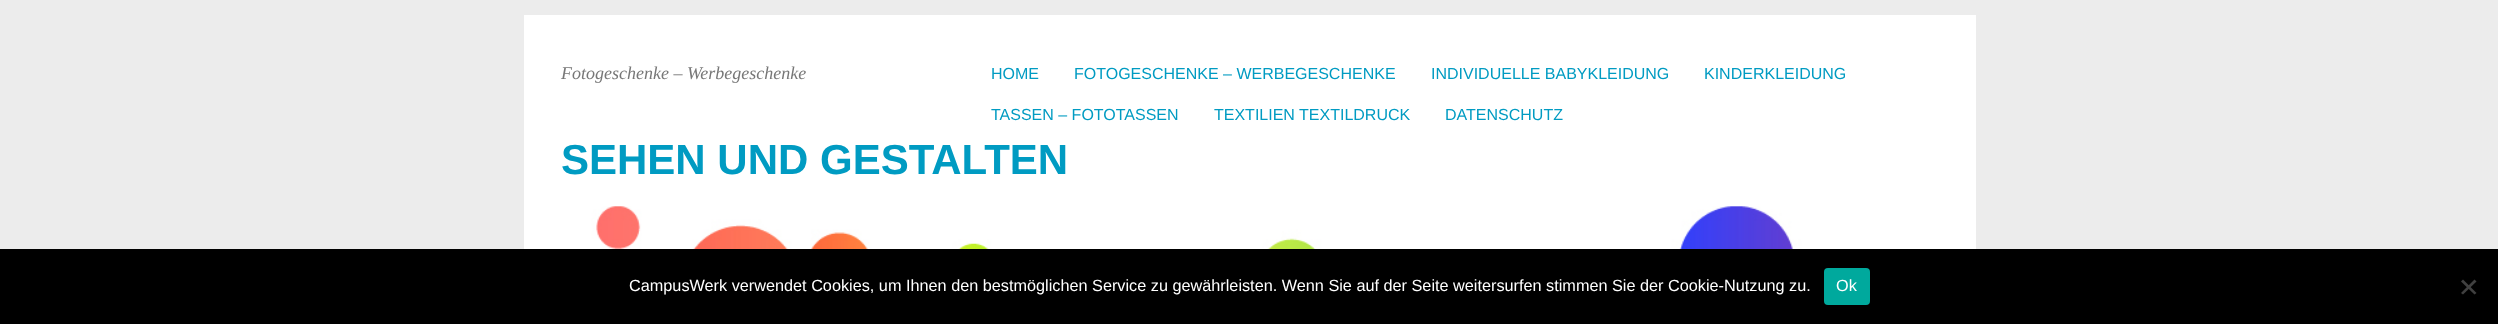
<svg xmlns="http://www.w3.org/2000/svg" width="2498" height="324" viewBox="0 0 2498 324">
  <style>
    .t1 { font: italic 18px Liberation Serif; fill: #777; }
    .t2 { font: bold 42px Liberation Sans; fill: #009bc2; }
    .t3 { font: 16px Liberation Sans; fill: #009bc2; }
    .t4 { font: 16.25px Liberation Sans; fill: #fff; }
  </style>
  <rect width="100%" height="100%" fill="#ececec"/>
  <rect x="524" y="15" width="1452" height="234" fill="#fff"/>
  <text x="561" y="79" class="t1">Fotogeschenke – Werbegeschenke</text>
  <text x="561" y="174" class="t2">SEHEN UND GESTALTEN</text>
  <text x="991" y="79" class="t3">HOME</text>
  <text x="1074" y="79" class="t3">FOTOGESCHENKE – WERBEGESCHENKE</text>
  <text x="1431" y="79" class="t3">INDIVIDUELLE BABYKLEIDUNG</text>
  <text x="1704" y="79" class="t3">KINDERKLEIDUNG</text>
  <text x="991" y="120" class="t3">TASSEN – FOTOTASSEN</text>
  <text x="1214" y="120" class="t3">TEXTILIEN TEXTILDRUCK</text>
  <text x="1445" y="120" class="t3">DATENSCHUTZ</text>
  <image x="561" y="206" width="1378" height="43" href="images/1.png"/>
  <rect x="0" y="249" width="2498" height="75" fill="#000"/>
  <text x="629" y="291" class="t4">CampusWerk verwendet Cookies, um Ihnen den bestmöglichen Service zu gewährleisten. Wenn Sie auf der Seite weitersurfen stimmen Sie der Cookie-Nutzung zu.</text>
  <rect x="1824" y="268" width="46" height="37" rx="4" fill="#00a99d"/>
  <text x="1836" y="291" class="t4">Ok</text>
  <path d="M2474.5 279.5L2476.5 281.5L2463 294.5L2461 293Z" fill="#404040"/>
  <path d="M2461 281.5L2463 279.5L2476.5 293L2474.5 294.5Z" fill="#404040"/>
</svg>
